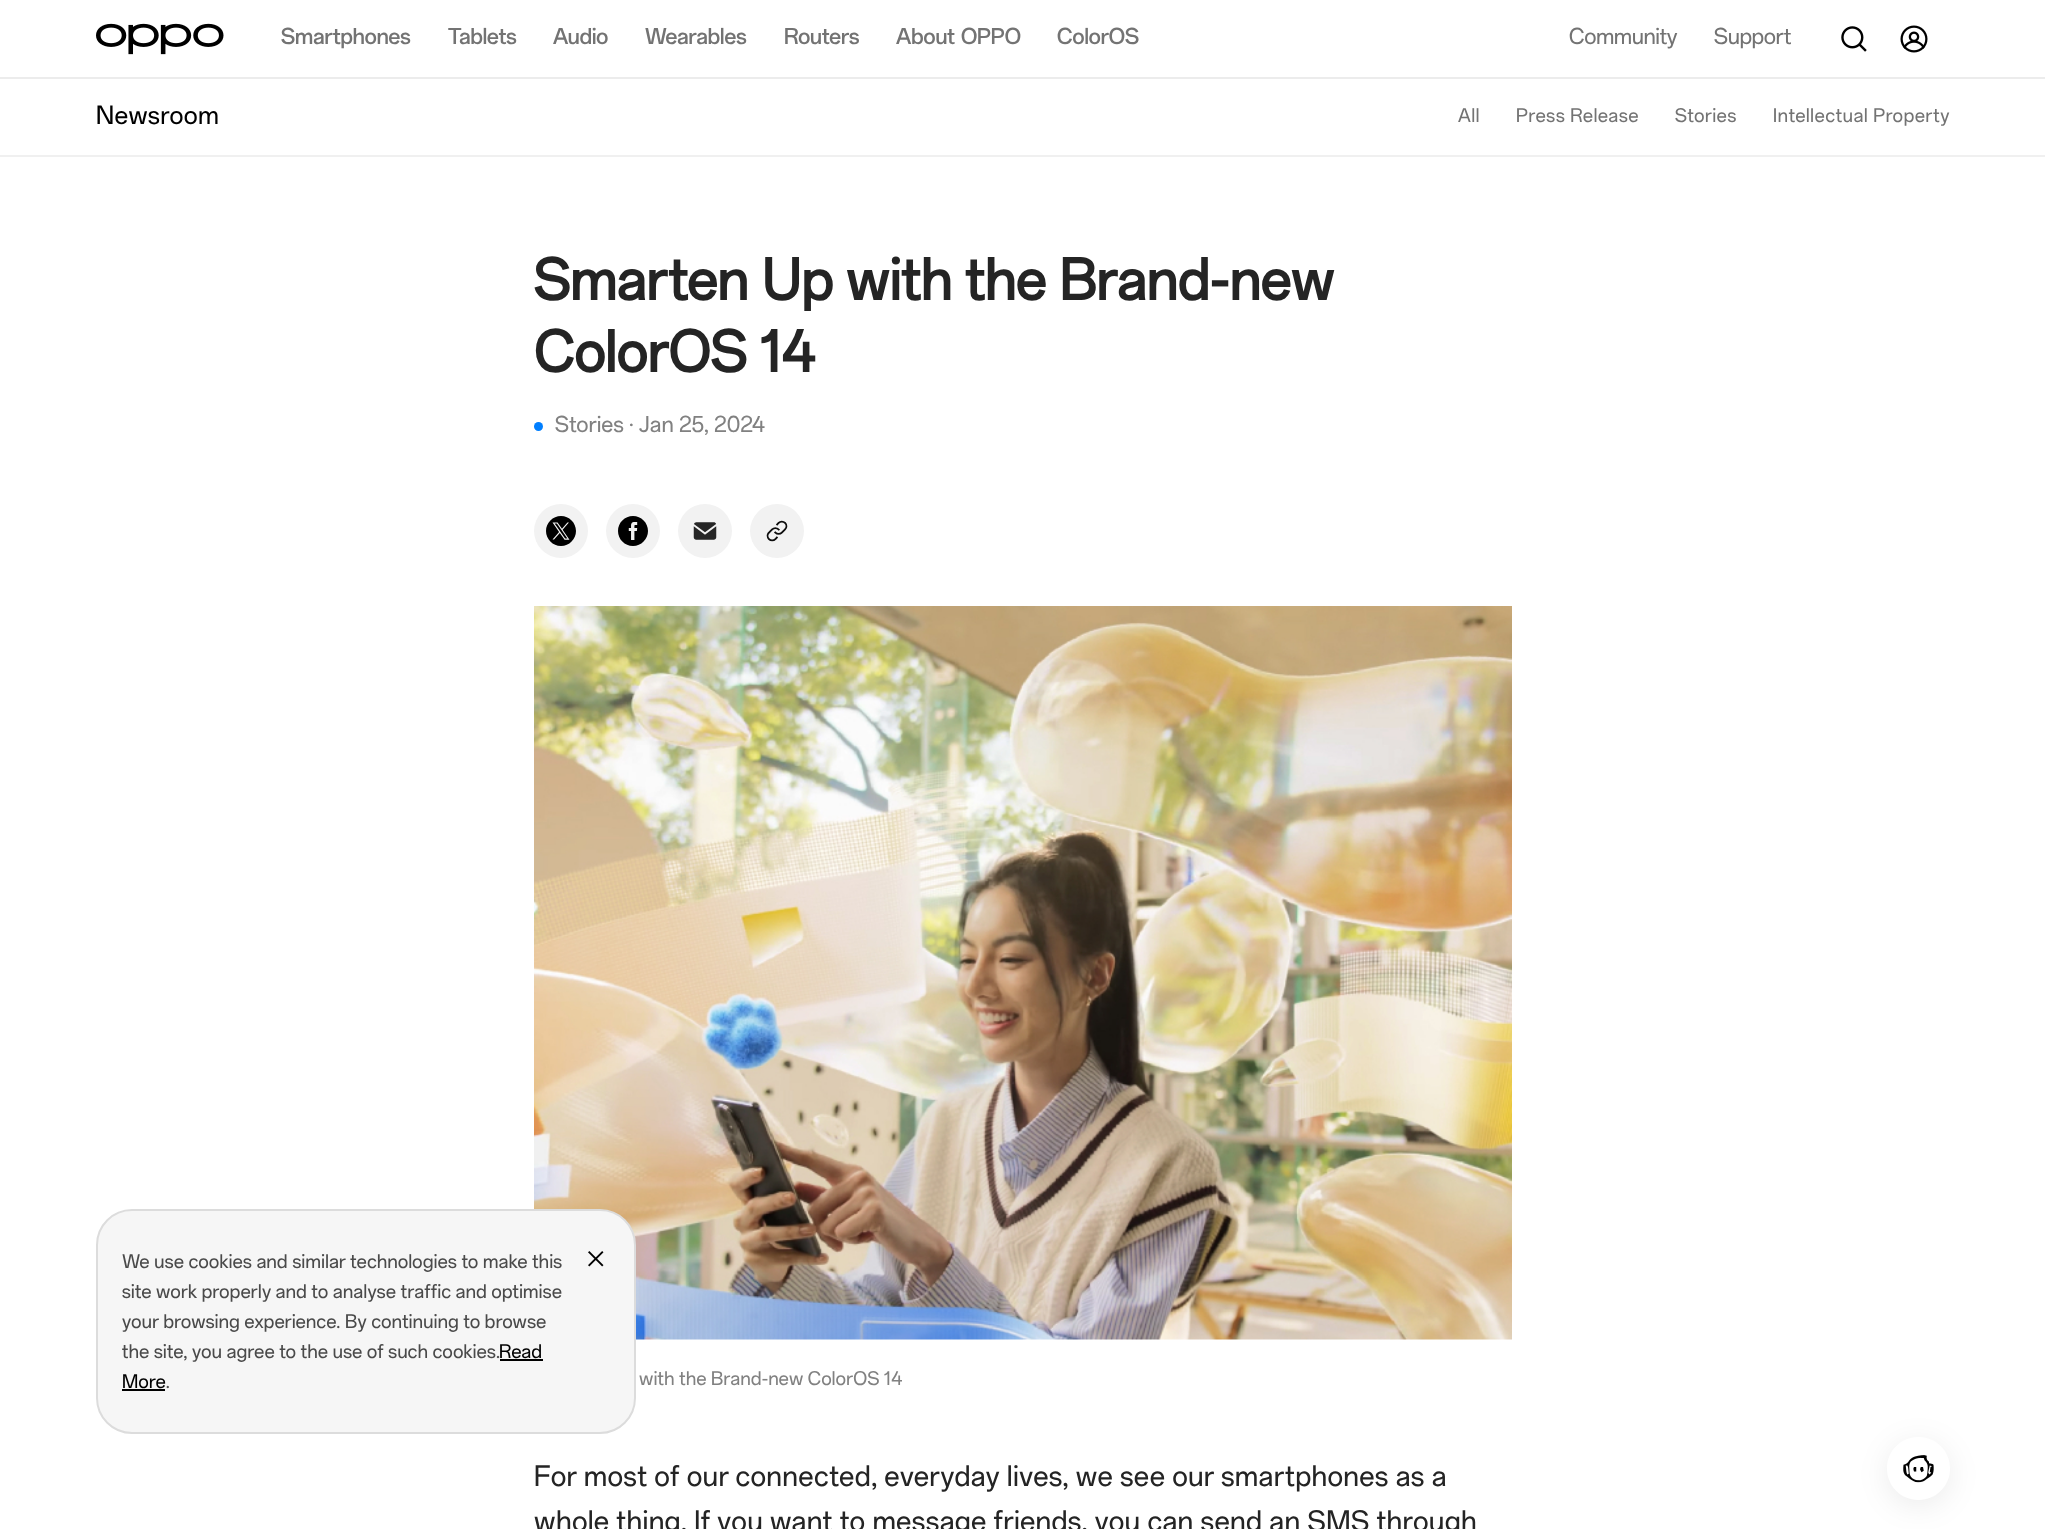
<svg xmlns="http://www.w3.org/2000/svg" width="2045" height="1529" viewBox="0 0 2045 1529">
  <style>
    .t1 { font: 500 21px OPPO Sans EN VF; fill: #737373; }
    .t2 { font: 21px OPPO Sans EN VF; fill: #737373; }
    .t3 { font: 18px OPPO Sans EN VF; letter-spacing: 0.38px; fill: #4a4a4a; }
    .t4 { font: 18px OPPO Sans EN VF; letter-spacing: 0.38px; fill: #000; }
    .t5 { font: 24px OPPO Sans EN VF; letter-spacing: 0.75px; fill: #000; }
    .t6 { font: 18px OPPO Sans EN VF; letter-spacing: 0.75px; fill: #737373; }
    .t7 { font: bold 54px OPPO Sans EN VF; letter-spacing: 0.75px; fill: #242424; }
    .t8 { font: 21px OPPO Sans EN VF; letter-spacing: 0.4px; fill: #818181; }
    .t9 { font: 18px OPPO Sans EN VF; letter-spacing: 0.35px; fill: #818181; }
    .t10 { font: 27px OPPO Sans EN VF; letter-spacing: 0.75px; fill: #242424; }
  </style>
  <defs>
    <clipPath id="clip1"><path d="M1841 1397H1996V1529H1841ZM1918.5 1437C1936 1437 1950 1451 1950 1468.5C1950 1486 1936 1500 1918.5 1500C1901 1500 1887 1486 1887 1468.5C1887 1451 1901 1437 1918.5 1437Z" clip-rule="evenodd"/></clipPath>
  </defs>
  <rect width="100%" height="100%" fill="#fff"/>
  <rect x="0" y="77" width="2045" height="2" fill="#ececec"/>
  <image x="96" y="23" width="128" height="32" href="images/1.png"/>
  <text x="281" y="44" class="t1">Smartphones</text>
  <text x="448" y="44" class="t1">Tablets</text>
  <text x="553" y="44" class="t1">Audio</text>
  <text x="645" y="44" class="t1">Wearables</text>
  <text x="784" y="44" class="t1">Routers</text>
  <text x="896" y="44" word-spacing="1" class="t1">About OPPO</text>
  <text x="1057" y="44" class="t1">ColorOS</text>
  <text x="1569" y="44" class="t2">Community</text>
  <text x="1714" y="44" class="t2">Support</text>
  <image x="1841" y="26" width="26" height="26" href="images/2.png"/>
  <image x="1900" y="25" width="28" height="28" href="images/3.png"/>
  <image x="534" y="606" width="978" height="734" href="images/9.png"/>
  <rect x="97" y="1210" width="538" height="223" rx="35" fill="#f6f6f6" stroke="#dcdcdc" stroke-width="2"/>
  <text x="122" y="1268" class="t3">We use cookies and similar technologies to make this</text>
  <text x="122" y="1298" class="t3">site work properly and to analyse traffic and optimise</text>
  <text x="122" y="1328" class="t3">your browsing experience. By continuing to browse</text>
  <text x="122" y="1358" class="t3">the site, you agree to the use of such cookies.</text>
  <text x="499" y="1358" class="t4">Read</text>
  <rect x="500" y="1359" width="43" height="2" fill="#000"/>
  <text x="122" y="1388" class="t4">More</text>
  <rect x="122" y="1389" width="43" height="2" fill="#000"/>
  <text x="166" y="1388" class="t3">.</text>
  <image x="588" y="1251" width="16" height="16" href="images/4.png"/>
  <rect x="0" y="155" width="2045" height="2" fill="#f0f0f0"/>
  <text x="96" y="124" class="t5">Newsroom</text>
  <text x="1458" y="122" class="t6">All</text>
  <text x="1516" y="122" class="t6">Press Release</text>
  <text x="1675" y="122" class="t6">Stories</text>
  <text x="1773" y="122" class="t6">Intellectual Property</text>
  <text x="534" y="300" class="t7">Smarten Up with the Brand-new</text>
  <text x="534" y="372" class="t7">ColorOS 14</text>
  <circle cx="538.5" cy="426.5" r="4.5" fill="#007fff"/>
  <text x="555" y="432" class="t8">Stories · Jan 25, 2024</text>
  <circle cx="561" cy="531" r="27" fill="#f2f2f2"/>
  <image x="546" y="516" width="30" height="30" href="images/5.png"/>
  <circle cx="633" cy="531" r="27" fill="#f2f2f2"/>
  <image x="618" y="516" width="30" height="30" href="images/6.png"/>
  <circle cx="705" cy="531" r="27" fill="#f2f2f2"/>
  <image x="693" y="522" width="24" height="18" href="images/7.png"/>
  <circle cx="777" cy="531" r="27" fill="#f2f2f2"/>
  <image x="766" y="520" width="22" height="22" href="images/8.png"/>
  <text x="639" y="1385" class="t9">with the Brand-new ColorOS 14</text>
  <text x="534" y="1486" class="t10">For most of our connected, everyday lives, we see our smartphones as a</text>
  <text x="534" y="1531" class="t10">whole thing. If you want to message friends, you can send an SMS through</text>
  <g clip-path="url(#clip1)">
    <rect x="1887" y="1443" width="63" height="63" rx="31.5" fill="#00000014" filter="blur(15px)"/>
  </g>
  <image x="1903" y="1455" width="31" height="28" href="images/10.png"/>
</svg>
